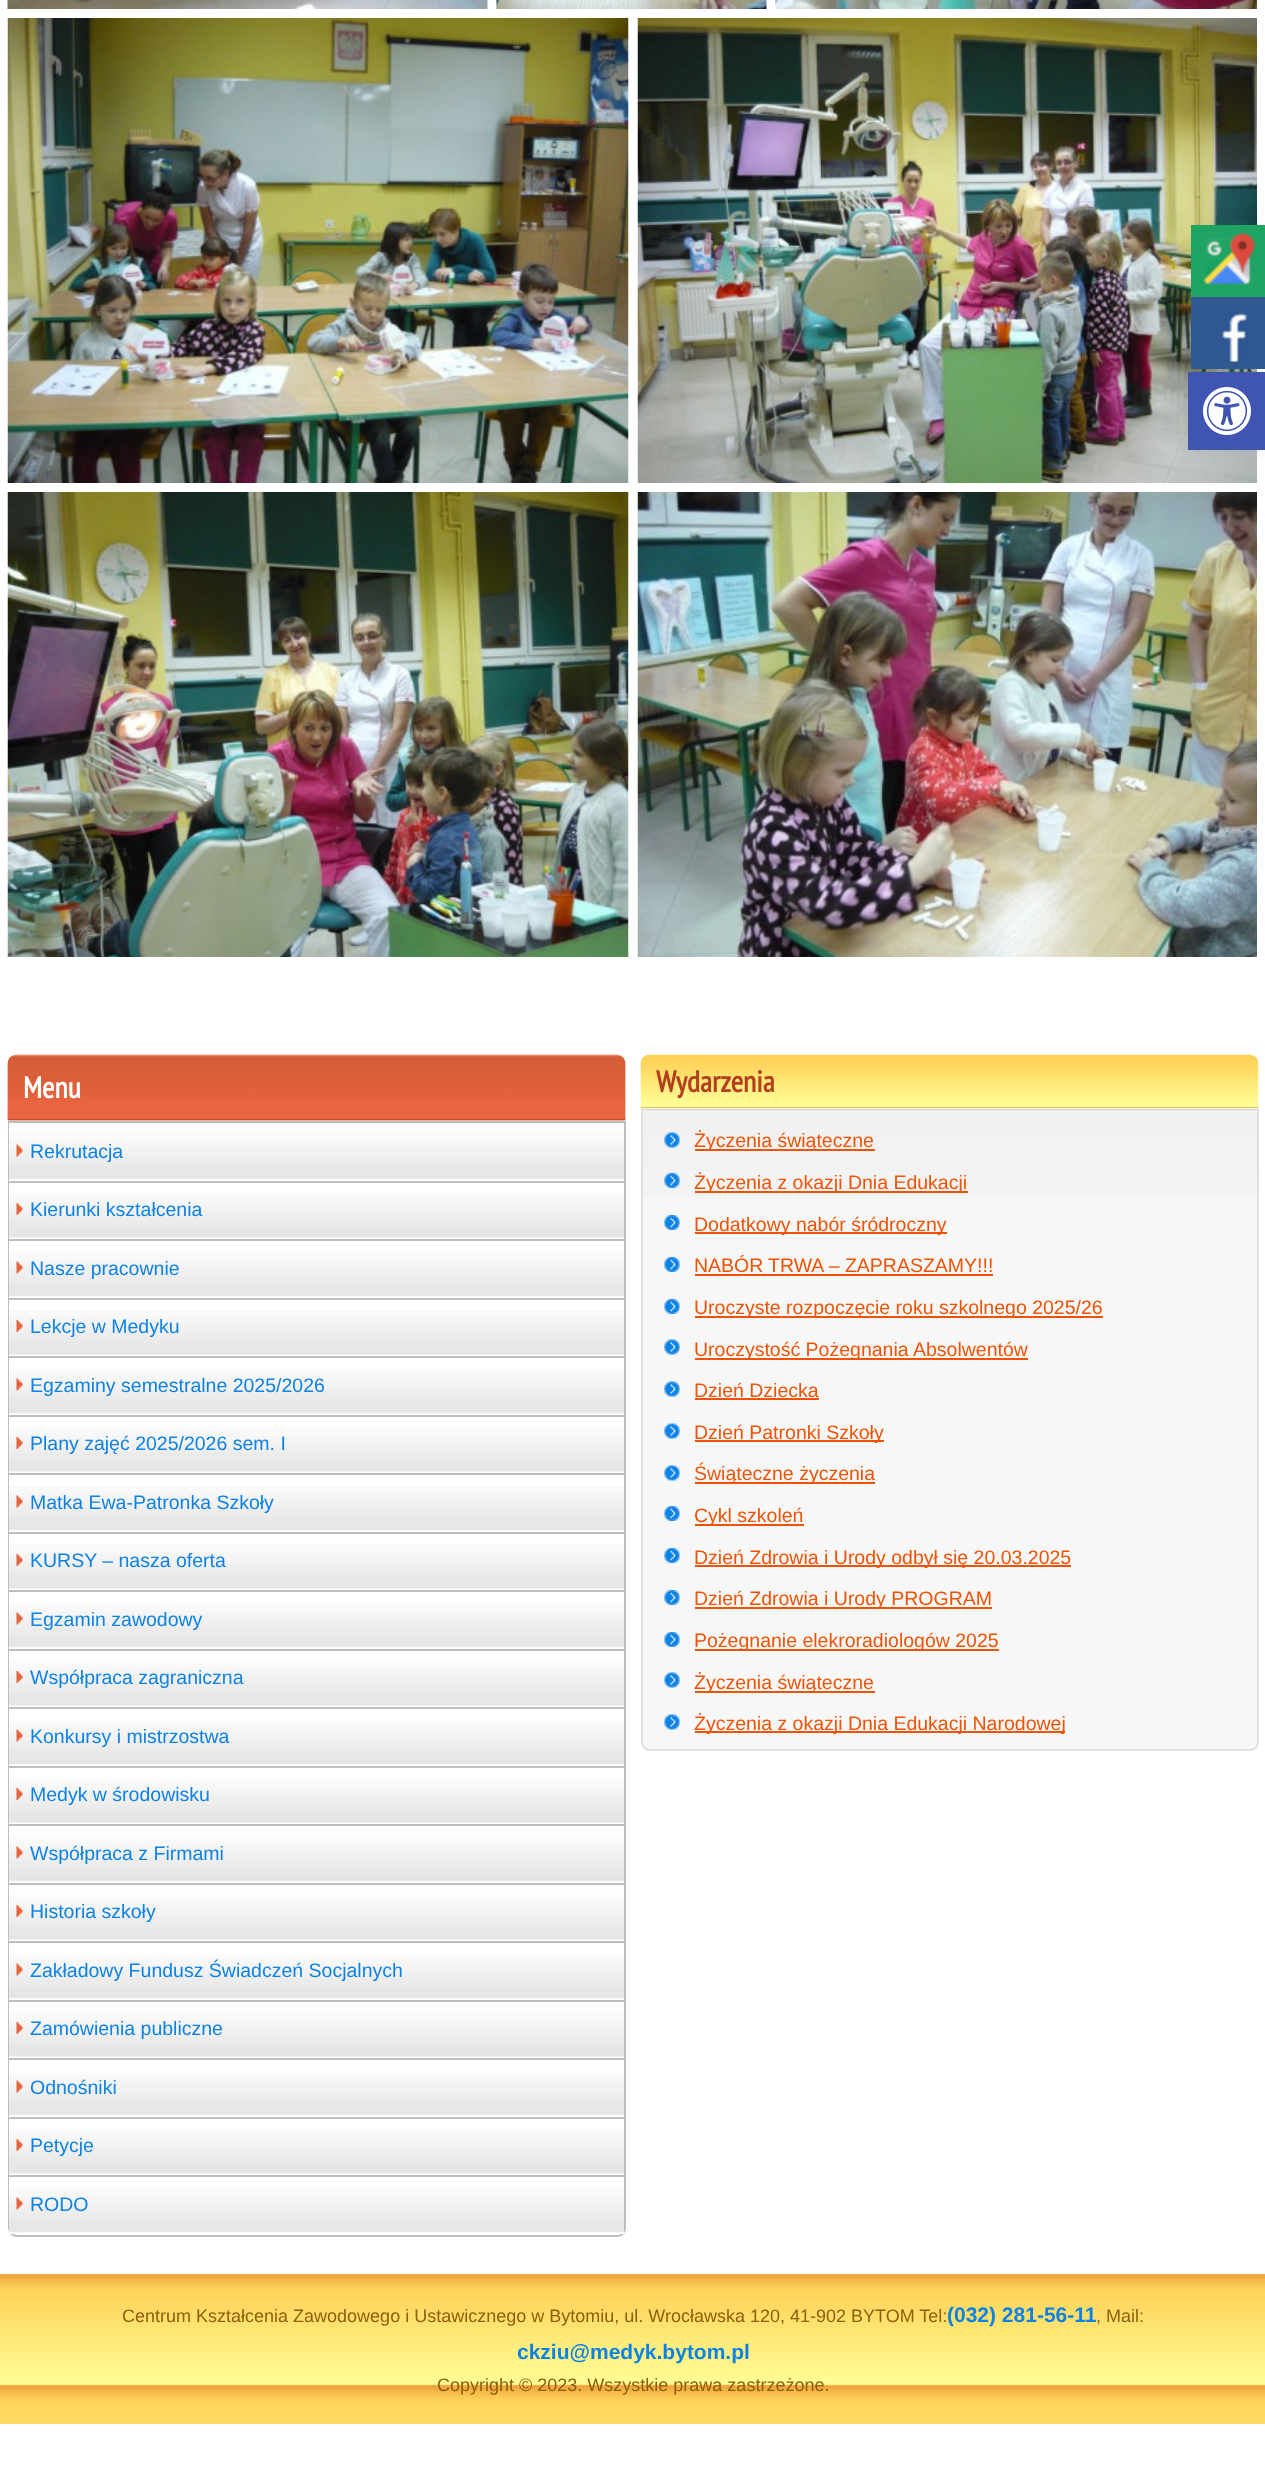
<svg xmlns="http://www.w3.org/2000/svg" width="1265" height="2467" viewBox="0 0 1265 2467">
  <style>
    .t1 { font: bold 30px PT Sans Narrow; fill: #fff; }
    .t2 { font: 19.5px Liberation Sans; fill: #0d82e5; }
    .t3 { font: bold 30px PT Sans Narrow; fill: #b23f1f; }
    .t4 { font: 19.5px Liberation Sans; fill: #f05305; }
    .t5 { font: 18px Liberation Sans; fill: #8f5e0a; }
    .t6 { font: bold 21px Liberation Sans; fill: #0d82e5; }
  </style>
  <rect width="100%" height="100%" fill="#fff"/>
  <image x="637" y="18" width="620" height="465" href="images/8.png"/>
  <rect x="1191" y="225" width="74" height="72" fill="#20a464"/>
  <image x="1203" y="232" width="53" height="53" href="images/1.png"/>
  <rect x="1188" y="372" width="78" height="78" fill="#0000001a" filter="blur(7.5px)"/>
  <rect x="1191" y="297" width="74" height="72" fill="#305891"/>
  <image x="1222" y="313" width="26" height="49" href="images/2.png"/>
  <rect x="1188" y="372" width="77" height="78" fill="#4054b2"/>
  <image x="1203" y="387" width="48" height="48" href="images/3.png"/>
  <image x="7" y="0" width="481" height="9" href="images/4.png"/>
  <image x="496" y="0" width="271" height="9" href="images/5.png"/>
  <image x="775" y="0" width="482" height="9" href="images/6.png"/>
  <image x="7" y="18" width="622" height="465" href="images/7.png"/>
  <image x="7" y="492" width="622" height="465" href="images/9.png"/>
  <image x="637" y="492" width="620" height="465" href="images/10.png"/>
  <image x="7" y="1054" width="619" height="67" href="images/11.png"/>
  <text x="23" y="1098" class="t1">Menu</text>
  <path d="M9 1122H625V2228C625 2232.5 621.5 2236 617 2236H17C12.5 2236 9 2232.5 9 2228Z" fill="none" stroke="#bebebe" stroke-width="2"/>
  <rect x="9" y="1180" width="1" height="1" fill="#fff"/>
  <image x="9" y="1123" width="615" height="57" href="images/12.png"/>
  <image x="16" y="1144" width="7" height="13" href="images/13.png"/>
  <text x="30" y="1158" class="t2">Rekrutacja</text>
  <rect x="9" y="1181" width="615" height="2" fill="#bebebe"/>
  <rect x="9" y="1183" width="1" height="56" fill="#fff"/>
  <image x="9" y="1193" width="615" height="45" href="images/14.png"/>
  <image x="16" y="1203" width="7" height="12" href="images/15.png"/>
  <text x="30" y="1216" class="t2">Kierunki kształcenia</text>
  <rect x="9" y="1239" width="615" height="2" fill="#bebebe"/>
  <rect x="9" y="1241" width="1" height="57" fill="#fff"/>
  <image x="9" y="1252" width="615" height="45" href="images/16.png"/>
  <image x="16" y="1261" width="7" height="13" href="images/13.png"/>
  <text x="30" y="1275" class="t2">Nasze pracownie</text>
  <rect x="9" y="1298" width="615" height="2" fill="#bebebe"/>
  <rect x="9" y="1300" width="1" height="56" fill="#fff"/>
  <image x="9" y="1310" width="615" height="45" href="images/14.png"/>
  <image x="16" y="1320" width="7" height="12" href="images/15.png"/>
  <text x="30" y="1333" class="t2">Lekcje w Medyku</text>
  <rect x="9" y="1356" width="615" height="2" fill="#bebebe"/>
  <rect x="9" y="1358" width="1" height="57" fill="#fff"/>
  <image x="9" y="1369" width="615" height="45" href="images/16.png"/>
  <image x="16" y="1378" width="7" height="13" href="images/13.png"/>
  <text x="30" y="1392" class="t2">Egzaminy semestralne 2025/2026</text>
  <rect x="9" y="1415" width="615" height="2" fill="#bebebe"/>
  <rect x="9" y="1417" width="1" height="56" fill="#fff"/>
  <image x="9" y="1427" width="615" height="45" href="images/14.png"/>
  <image x="16" y="1437" width="7" height="12" href="images/15.png"/>
  <text x="30" y="1450" class="t2">Plany zajęć 2025/2026 sem. I</text>
  <rect x="9" y="1473" width="615" height="2" fill="#bebebe"/>
  <rect x="9" y="1475" width="1" height="57" fill="#fff"/>
  <image x="9" y="1486" width="615" height="45" href="images/16.png"/>
  <image x="16" y="1495" width="7" height="13" href="images/13.png"/>
  <text x="30" y="1509" class="t2">Matka Ewa-Patronka Szkoły</text>
  <rect x="9" y="1532" width="615" height="2" fill="#bebebe"/>
  <rect x="9" y="1534" width="1" height="56" fill="#fff"/>
  <image x="9" y="1544" width="615" height="45" href="images/14.png"/>
  <image x="16" y="1554" width="7" height="12" href="images/15.png"/>
  <text x="30" y="1567" class="t2">KURSY – nasza oferta</text>
  <rect x="9" y="1590" width="615" height="2" fill="#bebebe"/>
  <rect x="9" y="1592" width="1" height="57" fill="#fff"/>
  <image x="9" y="1603" width="615" height="45" href="images/16.png"/>
  <image x="16" y="1612" width="7" height="13" href="images/13.png"/>
  <text x="30" y="1626" class="t2">Egzamin zawodowy</text>
  <rect x="9" y="1649" width="615" height="2" fill="#bebebe"/>
  <rect x="9" y="1651" width="1" height="56" fill="#fff"/>
  <image x="9" y="1661" width="615" height="45" href="images/14.png"/>
  <image x="16" y="1671" width="7" height="12" href="images/15.png"/>
  <text x="30" y="1684" class="t2">Współpraca zagraniczna</text>
  <rect x="9" y="1707" width="615" height="2" fill="#bebebe"/>
  <rect x="9" y="1709" width="1" height="57" fill="#fff"/>
  <image x="9" y="1720" width="615" height="45" href="images/16.png"/>
  <image x="16" y="1729" width="7" height="13" href="images/13.png"/>
  <text x="30" y="1743" class="t2">Konkursy i mistrzostwa</text>
  <rect x="9" y="1766" width="615" height="2" fill="#bebebe"/>
  <rect x="9" y="1768" width="1" height="56" fill="#fff"/>
  <image x="9" y="1778" width="615" height="45" href="images/14.png"/>
  <image x="16" y="1788" width="7" height="12" href="images/15.png"/>
  <text x="30" y="1801" class="t2">Medyk w środowisku</text>
  <rect x="9" y="1824" width="615" height="2" fill="#bebebe"/>
  <rect x="9" y="1826" width="1" height="57" fill="#fff"/>
  <image x="9" y="1837" width="615" height="45" href="images/16.png"/>
  <image x="16" y="1846" width="7" height="13" href="images/13.png"/>
  <text x="30" y="1860" class="t2">Współpraca z Firmami</text>
  <rect x="9" y="1883" width="615" height="2" fill="#bebebe"/>
  <rect x="9" y="1885" width="1" height="56" fill="#fff"/>
  <image x="9" y="1895" width="615" height="45" href="images/14.png"/>
  <image x="16" y="1905" width="7" height="12" href="images/15.png"/>
  <text x="30" y="1918" class="t2">Historia szkoły</text>
  <rect x="9" y="1941" width="615" height="2" fill="#bebebe"/>
  <rect x="9" y="1943" width="1" height="57" fill="#fff"/>
  <image x="9" y="1954" width="615" height="45" href="images/16.png"/>
  <image x="16" y="1963" width="7" height="13" href="images/13.png"/>
  <text x="30" y="1977" class="t2">Zakładowy Fundusz Świadczeń Socjalnych</text>
  <rect x="9" y="2000" width="615" height="2" fill="#bebebe"/>
  <rect x="9" y="2002" width="1" height="56" fill="#fff"/>
  <image x="9" y="2012" width="615" height="45" href="images/14.png"/>
  <image x="16" y="2022" width="7" height="12" href="images/15.png"/>
  <text x="30" y="2035" class="t2">Zamówienia publiczne</text>
  <rect x="9" y="2058" width="615" height="2" fill="#bebebe"/>
  <rect x="9" y="2060" width="1" height="57" fill="#fff"/>
  <image x="9" y="2071" width="615" height="45" href="images/16.png"/>
  <image x="16" y="2080" width="7" height="13" href="images/13.png"/>
  <text x="30" y="2094" class="t2">Odnośniki</text>
  <rect x="9" y="2117" width="615" height="2" fill="#bebebe"/>
  <rect x="9" y="2119" width="1" height="56" fill="#fff"/>
  <image x="9" y="2129" width="615" height="45" href="images/14.png"/>
  <image x="16" y="2139" width="7" height="12" href="images/15.png"/>
  <text x="30" y="2152" class="t2">Petycje</text>
  <rect x="9" y="2175" width="615" height="2" fill="#bebebe"/>
  <rect x="9" y="2177" width="615" height="57" fill="#fff"/>
  <image x="9" y="2188" width="615" height="45" href="images/16.png"/>
  <image x="16" y="2197" width="7" height="13" href="images/13.png"/>
  <text x="30" y="2211" class="t2">RODO</text>
  <image x="640" y="1054" width="619" height="55" href="images/17.png"/>
  <text x="656" y="1092" class="t3">Wydarzenia</text>
  <path d="M641 1109H1259V1742C1259 1747 1255 1751 1250 1751H650C645 1751 641 1747 641 1742Z" fill="#f7f7f7"/>
  <image x="643" y="1112" width="614" height="85" href="images/18.png"/>
  <path d="M642 1110H1258V1742C1258 1746.5 1254.5 1750 1250 1750H650C645.5 1750 642 1746.5 642 1742Z" fill="none" stroke="#e0e0e0" stroke-width="2"/>
  <image x="664" y="1132" width="16" height="16" href="images/19.png"/>
  <rect x="695" y="1149" width="180" height="2" fill="#f05305"/>
  <text x="694" y="1147" class="t4">Życzenia świąteczne</text>
  <image x="664" y="1173" width="16" height="15" href="images/20.png"/>
  <rect x="695" y="1191" width="273" height="2" fill="#f05305"/>
  <text x="694" y="1189" class="t4">Życzenia z okazji Dnia Edukacji</text>
  <image x="664" y="1215" width="16" height="15" href="images/21.png"/>
  <rect x="695" y="1232" width="252" height="2" fill="#f05305"/>
  <text x="694" y="1231" class="t4">Dodatkowy nabór śródroczny</text>
  <image x="664" y="1257" width="16" height="15" href="images/21.png"/>
  <text x="694" y="1272" class="t4">NABÓR</text>
  <text x="768" y="1272" class="t4">TRWA – ZAPRASZAMY!!!</text>
  <rect x="695" y="1274" width="298" height="2" fill="#f05305"/>
  <image x="664" y="1299" width="16" height="15" href="images/21.png"/>
  <rect x="695" y="1316" width="408" height="2" fill="#f05305"/>
  <text x="694" y="1314" class="t4">Uroczyste rozpoczęcie roku szkolnego 2025/26</text>
  <image x="664" y="1339" width="16" height="16" href="images/22.png"/>
  <rect x="695" y="1358" width="333" height="2" fill="#f05305"/>
  <text x="694" y="1356" class="t4">Uroczystość Pożegnania Absolwentów</text>
  <image x="664" y="1381" width="16" height="16" href="images/22.png"/>
  <text x="694" y="1397" class="t4">Dzień Dziecka</text>
  <rect x="695" y="1398" width="124" height="2" fill="#f05305"/>
  <image x="664" y="1423" width="16" height="16" href="images/22.png"/>
  <rect x="695" y="1440" width="189" height="2" fill="#f05305"/>
  <text x="694" y="1439" class="t4">Dzień Patronki Szkoły</text>
  <image x="664" y="1465" width="16" height="16" href="images/22.png"/>
  <rect x="695" y="1482" width="180" height="2" fill="#f05305"/>
  <text x="694" y="1480" class="t4">Świąteczne życzenia</text>
  <image x="664" y="1506" width="16" height="15" href="images/21.png"/>
  <rect x="695" y="1524" width="109" height="2" fill="#f05305"/>
  <text x="694" y="1522" class="t4">Cykl szkoleń</text>
  <image x="664" y="1548" width="16" height="15" href="images/21.png"/>
  <rect x="695" y="1565" width="376" height="2" fill="#f05305"/>
  <text x="694" y="1564" class="t4">Dzień Zdrowia i Urody odbył się 20.03.2025</text>
  <image x="664" y="1590" width="16" height="15" href="images/21.png"/>
  <rect x="695" y="1607" width="297" height="2" fill="#f05305"/>
  <text x="694" y="1605" class="t4">Dzień Zdrowia i Urody PROGRAM</text>
  <image x="664" y="1632" width="16" height="15" href="images/21.png"/>
  <rect x="695" y="1649" width="304" height="2" fill="#f05305"/>
  <text x="694" y="1647" class="t4">Pożegnanie elekroradiologów 2025</text>
  <image x="664" y="1672" width="16" height="16" href="images/22.png"/>
  <rect x="695" y="1691" width="180" height="2" fill="#f05305"/>
  <text x="694" y="1689" class="t4">Życzenia świąteczne</text>
  <image x="664" y="1714" width="16" height="16" href="images/22.png"/>
  <rect x="695" y="1731" width="370" height="2" fill="#f05305"/>
  <text x="694" y="1730" class="t4">Życzenia z okazji Dnia Edukacji Narodowej</text>
  <image x="0" y="2274" width="1265" height="150" href="images/23.png"/>
  <text x="122" y="2322" class="t5">Centrum Kształcenia Zawodowego i Ustawicznego w Bytomiu, ul. Wrocławska 120, 41-902 BYTOM Tel:</text>
  <text x="947" y="2322" class="t6">(032) 281-56-11</text>
  <text x="1096" y="2322" class="t5">, Mail:</text>
  <text x="517" y="2359" class="t6">ckziu@medyk.bytom.pl</text>
  <text x="437" y="2391" class="t5">Copyright © 2023. Wszystkie prawa zastrzeżone.</text>
</svg>
